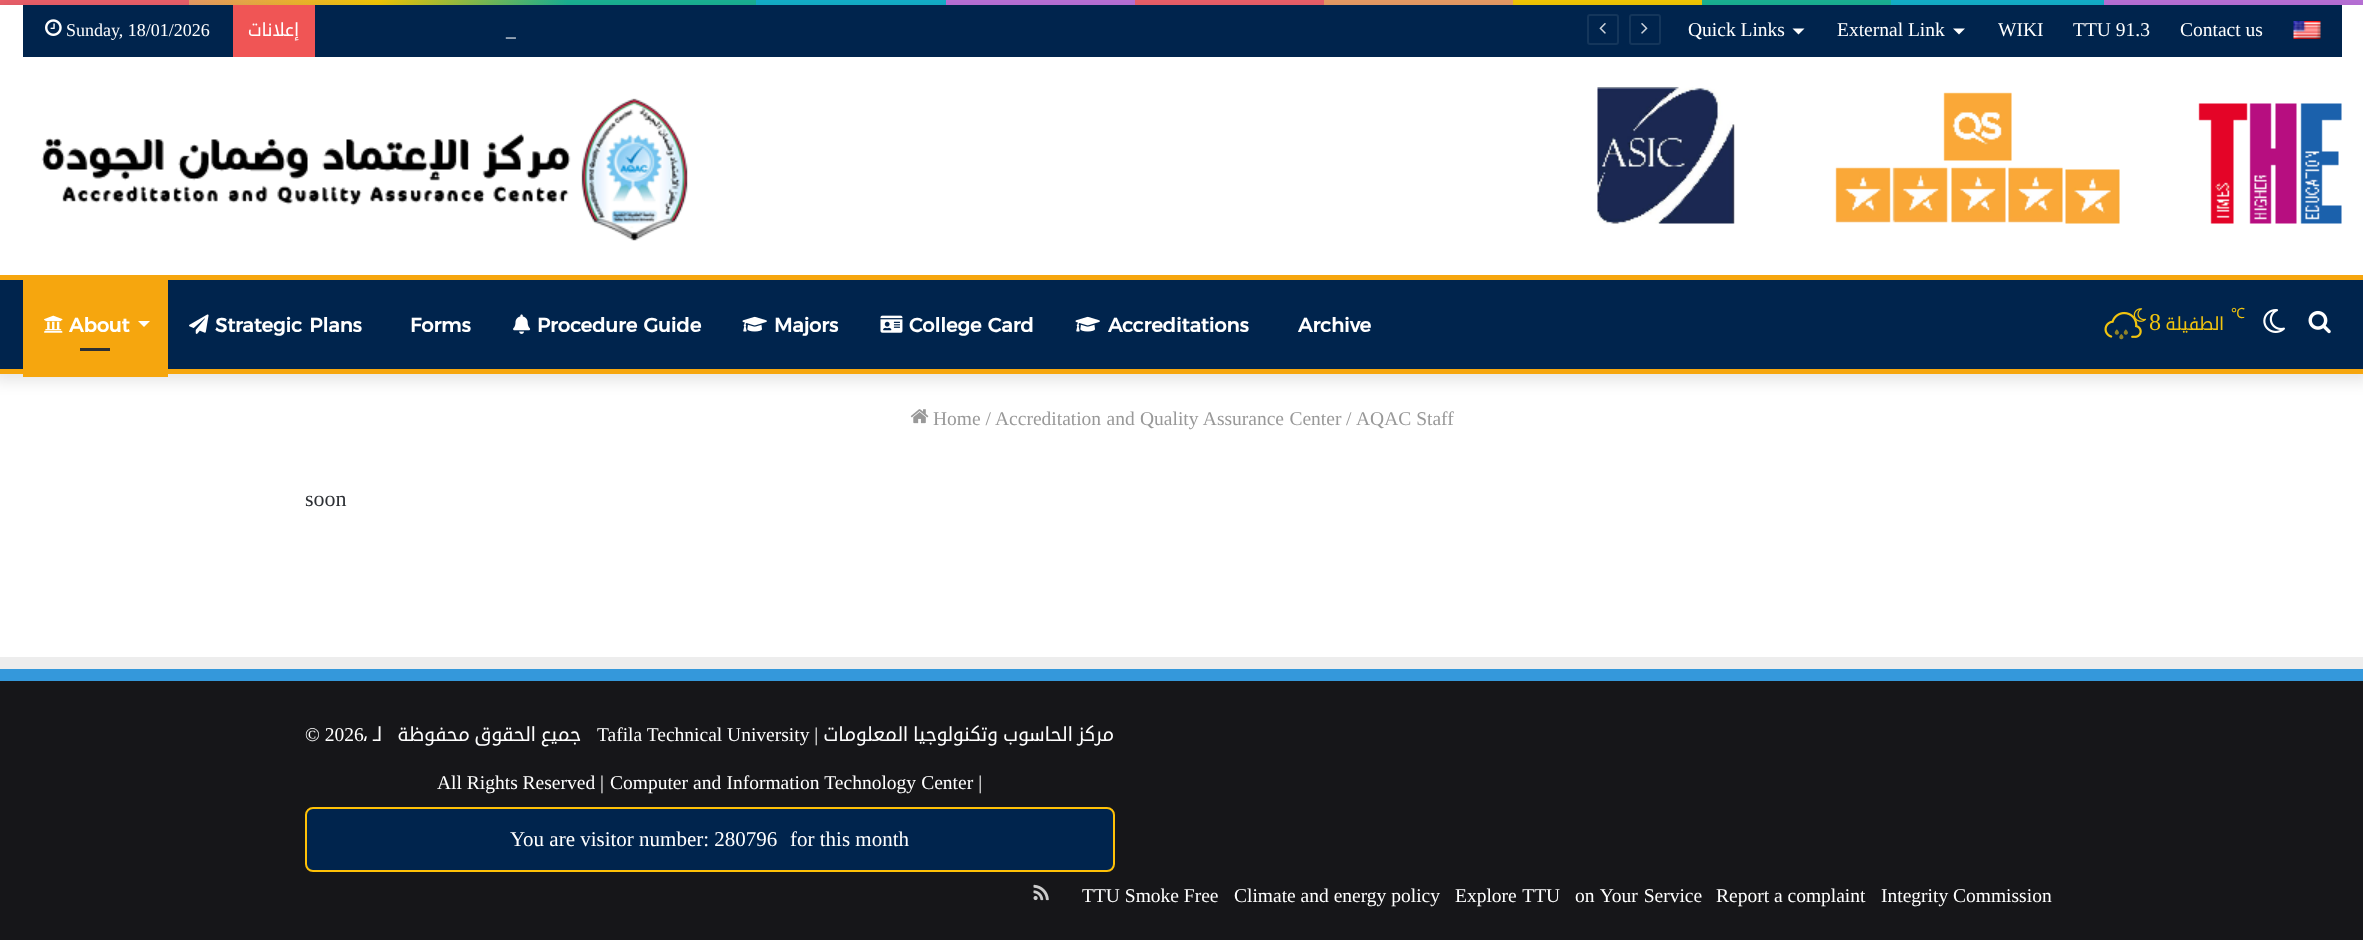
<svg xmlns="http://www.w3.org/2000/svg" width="2363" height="940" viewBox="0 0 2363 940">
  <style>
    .t1 { font: 18px Liberation Serif; fill: #fff; }
    .t2 { font: 18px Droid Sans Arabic; direction: rtl; fill: #fff; }
    .t3 { font: 19.5px Liberation Serif; fill: #fff; }
    .t4 { font: bold 19.5px Alexandria; fill: #fff; }
    .t5 { font: 24px Liberation Serif; fill: #f1c40f; }
    .t6 { font: 18px Droid Sans Arabic; direction: rtl; fill: #f1c40f; }
    .t7 { font: 14px Noto Sans; fill: #f1c40f; }
    .t8 { font: 19.5px Liberation Serif; fill: #999; }
    .t9 { font: 22px Liberation Serif; fill: #2e3136; }
    .t10 { font: 19.5px Droid Sans Arabic; fill: #fff; }
    .t11 { font: 19.5px Droid Sans Arabic; direction: rtl; fill: #fff; }
    .t12 { font: 21px Liberation Serif; fill: #fff; }
  </style>
  <defs>
    <linearGradient id="g1" gradientUnits="userSpaceOnUse" x1="0" y1="2.3" x2="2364" y2="2.2"><stop offset="0" stop-color="#f76570"/><stop offset="0.08" stop-color="#f76570"/><stop offset="0.08" stop-color="#f3a46b"/><stop offset="0.16" stop-color="#ffd205"/><stop offset="0.24" stop-color="#1bbc9b"/><stop offset="0.32" stop-color="#1bbc9b"/><stop offset="0.32" stop-color="#14b9d5"/><stop offset="0.4" stop-color="#14b9d5"/><stop offset="0.4" stop-color="#c377e4"/><stop offset="0.48" stop-color="#c377e4"/><stop offset="0.48" stop-color="#f76570"/><stop offset="0.56" stop-color="#f76570"/><stop offset="0.56" stop-color="#f3a46b"/><stop offset="0.64" stop-color="#f3a46b"/><stop offset="0.64" stop-color="#ffd205"/><stop offset="0.72" stop-color="#ffd205"/><stop offset="0.72" stop-color="#1bbc9b"/><stop offset="0.8" stop-color="#1bbc9b"/><stop offset="0.8" stop-color="#14b9d5"/><stop offset="0.89" stop-color="#14b9d5"/><stop offset="0.89" stop-color="#c377e4"/><stop offset="1" stop-color="#c377e4"/></linearGradient>
  </defs>
  <rect width="100%" height="100%" fill="#fff"/>
  <rect x="0" y="0" width="2363" height="5" fill="url(#g1)"/>
  <rect x="-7" y="-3" width="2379" height="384" fill="#0000001a" filter="blur(7.5px)"/>
  <rect x="0" y="5" width="2363" height="270" fill="#fff"/>
  <rect x="23" y="5" width="2319" height="52" fill="#00244d"/>
  <image x="45" y="19" width="17" height="17" href="images/1.png"/>
  <text x="66" y="36" class="t1">Sunday, 18/01/2026</text>
  <rect x="233" y="5" width="82" height="52" fill="#f05555"/>
  <text x="299" y="36" class="t2">إعلانات</text>
  <text x="506" y="36" class="t3">_</text>
  <rect x="1588" y="15" width="30" height="29" rx="2" fill="none" stroke="#14365b" stroke-width="2"/>
  <image x="1599" y="23" width="7" height="11" href="images/2.png"/>
  <rect x="1630" y="15" width="30" height="29" rx="2" fill="none" stroke="#14365b" stroke-width="2"/>
  <image x="1641" y="23" width="7" height="11" href="images/3.png"/>
  <text x="1688" y="36" class="t3">Quick Links</text>
  <path d="M1792.5 28.5H1804.5L1798.5 34.5Z" fill="#fff"/>
  <text x="1837" y="36" class="t3">External Link</text>
  <path d="M1953 28.5H1965L1959 34.5Z" fill="#fff"/>
  <text x="1998" y="36" class="t3">WIKI</text>
  <text x="2073" y="36" class="t3">TTU 91.3</text>
  <text x="2180" y="36" class="t3">Contact us</text>
  <image x="2293" y="21" width="28" height="18" href="images/4.png"/>
  <image x="41" y="98" width="647" height="143" href="images/5.png"/>
  <image x="1597" y="87" width="745" height="137" href="images/6.png"/>
  <rect x="0" y="280" width="2363" height="89" fill="#00244d"/>
  <rect x="0" y="275" width="2363" height="5" fill="#f6a60e"/>
  <rect x="0" y="369" width="2363" height="5" fill="#f6a60e"/>
  <rect x="23" y="374" width="145" height="3" fill="#f6a60e"/>
  <rect x="23" y="280" width="145" height="89" fill="#f6a60e"/>
  <image x="44" y="315" width="19" height="18" href="images/7.png"/>
  <text x="69" y="332" class="t4">About</text>
  <path d="M138 321H150L144 327Z" fill="#fff"/>
  <rect x="80" y="348" width="30" height="3" fill="#2c2f34"/>
  <image x="189" y="314" width="20" height="20" href="images/8.png"/>
  <text x="215" y="332" word-spacing="2" class="t4">Strategic Plans</text>
  <text x="410" y="332" class="t4">Forms</text>
  <image x="513" y="314" width="18" height="20" href="images/9.png"/>
  <text x="537" y="332" word-spacing="1" class="t4">Procedure Guide</text>
  <image x="742" y="316" width="25" height="16" href="images/10.png"/>
  <text x="774" y="332" class="t4">Majors</text>
  <image x="880" y="315" width="23" height="18" href="images/11.png"/>
  <text x="909" y="332" word-spacing="1" class="t4">College Card</text>
  <image x="1075" y="316" width="25" height="16" href="images/10.png"/>
  <text x="1108" y="332" class="t4">Accreditations</text>
  <text x="1298" y="332" class="t4">Archive</text>
  <image x="2133" y="308" width="14" height="14" href="images/12.png"/>
  <image x="2133" y="316" width="3" height="4" href="images/14.png"/>
  <image x="2104" y="311" width="38" height="27" href="images/13.png"/>
  <image x="2114" y="329" width="5" height="6" href="images/15.png"/>
  <image x="2123" y="329" width="5" height="6" href="images/15.png"/>
  <image x="2119" y="334" width="5" height="6" href="images/16.png"/>
  <text x="2149" y="330" class="t5">8</text>
  <text x="2224" y="330" class="t6">الطفيلة</text>
  <text x="2231" y="318" class="t7">℃</text>
  <image x="2263" y="309" width="22" height="24" href="images/17.png"/>
  <image x="2308" y="310" width="23" height="24" href="images/18.png"/>
  <image x="910" y="409" width="19" height="15" href="images/19.png"/>
  <text x="933" y="425" class="t8">Home /</text>
  <text x="995" y="425" word-spacing="0.5" class="t8">Accreditation and Quality Assurance Center</text>
  <text x="1346" y="425" class="t8">/</text>
  <text x="1356" y="425" class="t8">AQAC Staff</text>
  <text x="305" y="506" class="t9">soon</text>
  <rect x="0" y="657" width="2363" height="12" fill="#ededed"/>
  <rect x="0" y="669" width="2363" height="12" fill="#3498db"/>
  <rect x="0" y="681" width="2363" height="259" fill="#161619"/>
  <text x="305" y="741" class="t3">© 2026</text>
  <text x="363" y="741" class="t10">،</text>
  <text x="581" y="741" class="t11" xml:space="preserve">جميع الحقوق محفوظة   لـ</text>
  <text x="597" y="741" class="t3">Tafila Technical University |</text>
  <text x="1114" y="741" class="t11">مركز الحاسوب وتكنولوجيا المعلومات</text>
  <text x="437" y="789" class="t3">All Rights Reserved |</text>
  <text x="610" y="789" word-spacing="0.25" class="t3">Computer and Information Technology Center |</text>
  <rect x="306" y="808" width="808" height="63" rx="7" fill="#00244d" stroke="#ffc107" stroke-width="2"/>
  <text x="510" y="846" class="t12">You are visitor number: 280796</text>
  <text x="790" y="846" class="t12">for this month</text>
  <image x="1033" y="884" width="16" height="17" href="images/20.png"/>
  <text x="1082" y="902" class="t3">TTU Smoke Free</text>
  <text x="1234" y="902" class="t3">Climate and energy policy</text>
  <text x="1455" y="902" word-spacing="1" class="t3">Explore TTU</text>
  <text x="1575" y="902" word-spacing="1" class="t3">on Your Service</text>
  <text x="1716" y="902" class="t3">Report a complaint</text>
  <text x="1881" y="902" class="t3">Integrity Commission</text>
</svg>
